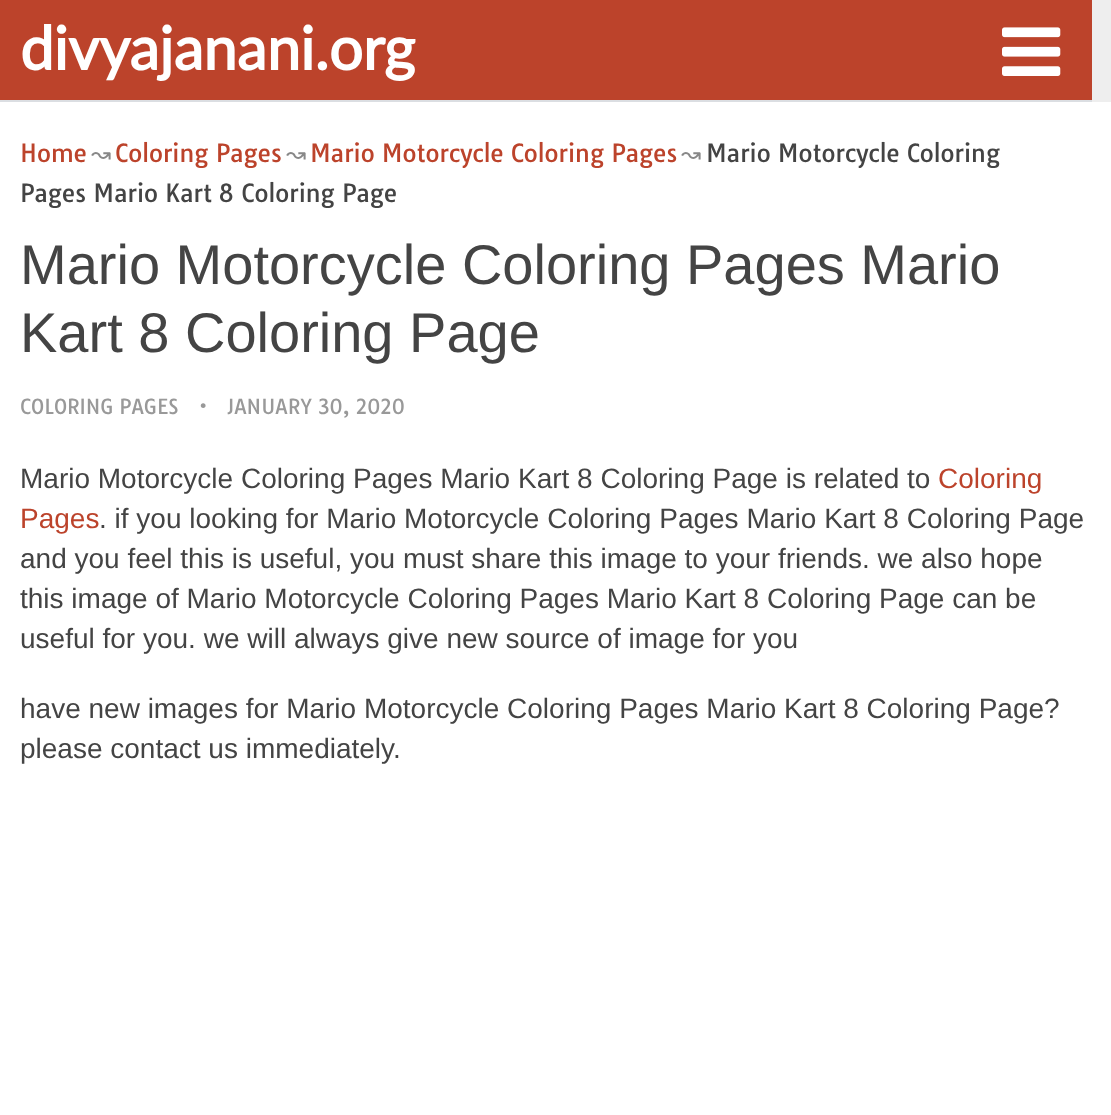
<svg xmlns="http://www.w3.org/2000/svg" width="1111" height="1115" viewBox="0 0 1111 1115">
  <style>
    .t1 { font: bold 60px Lato; fill: #fff; }
    .t2 { font: 24px Tauri; fill: #bc432b; }
    .t3 { font: 24px DejaVu Sans; fill: #888; }
    .t4 { font: 24px Tauri; fill: #444; }
    .t5 { font: 56px Liberation Sans; fill: #444; }
    .t6 { font: 20px Tauri; fill: #999; }
    .t7 { font: 28px Liberation Sans; fill: #444; }
    .t8 { font: 28px Liberation Sans; fill: #bc432b; }
  </style>
  <rect width="100%" height="100%" fill="#eee"/>
  <rect x="0" y="0" width="1092" height="100" fill="#bc432b"/>
  <rect x="0" y="100" width="1092" height="2" fill="#dbdee2"/>
  <text x="20" y="70" class="t1">divyajanani.org</text>
  <image x="1002" y="27" width="59" height="49" href="images/1.png"/>
  <rect x="0" y="102" width="1111" height="1013" fill="#fff"/>
  <text x="20" y="162" class="t2">Home</text>
  <text x="91" y="162" class="t3">↝</text>
  <text x="115" y="162" class="t2">Coloring Pages</text>
  <text x="286" y="162" class="t3">↝</text>
  <text x="310" y="162" class="t2">Mario Motorcycle Coloring Pages</text>
  <text x="681" y="162" class="t3">↝</text>
  <text x="706" y="162" class="t4">Mario Motorcycle Coloring</text>
  <text x="20" y="202" class="t4">Pages Mario Kart 8 Coloring Page</text>
  <text x="20" y="284" class="t5">Mario Motorcycle Coloring Pages Mario</text>
  <text x="20" y="352" class="t5">Kart 8 Coloring Page</text>
  <text x="20" y="414" class="t6">COLORING PAGES</text>
  <text x="199" y="414" class="t6">•</text>
  <text x="227" y="414" class="t6">JANUARY 30, 2020</text>
  <text x="20" y="488" class="t7">Mario Motorcycle Coloring Pages Mario Kart 8 Coloring Page is related to</text>
  <text x="938" y="488" class="t8">Coloring</text>
  <text x="20" y="528" class="t8">Pages</text>
  <text x="99" y="528" class="t7">. if you looking for Mario Motorcycle Coloring Pages Mario Kart 8 Coloring Page</text>
  <text x="20" y="568" class="t7">and you feel this is useful, you must share this image to your friends. we also hope</text>
  <text x="20" y="608" class="t7">this image of Mario Motorcycle Coloring Pages Mario Kart 8 Coloring Page can be</text>
  <text x="20" y="648" class="t7">useful for you. we will always give new source of image for you</text>
  <text x="20" y="718" class="t7">have new images for Mario Motorcycle Coloring Pages Mario Kart 8 Coloring Page?</text>
  <text x="20" y="758" class="t7">please contact us immediately.</text>
</svg>
